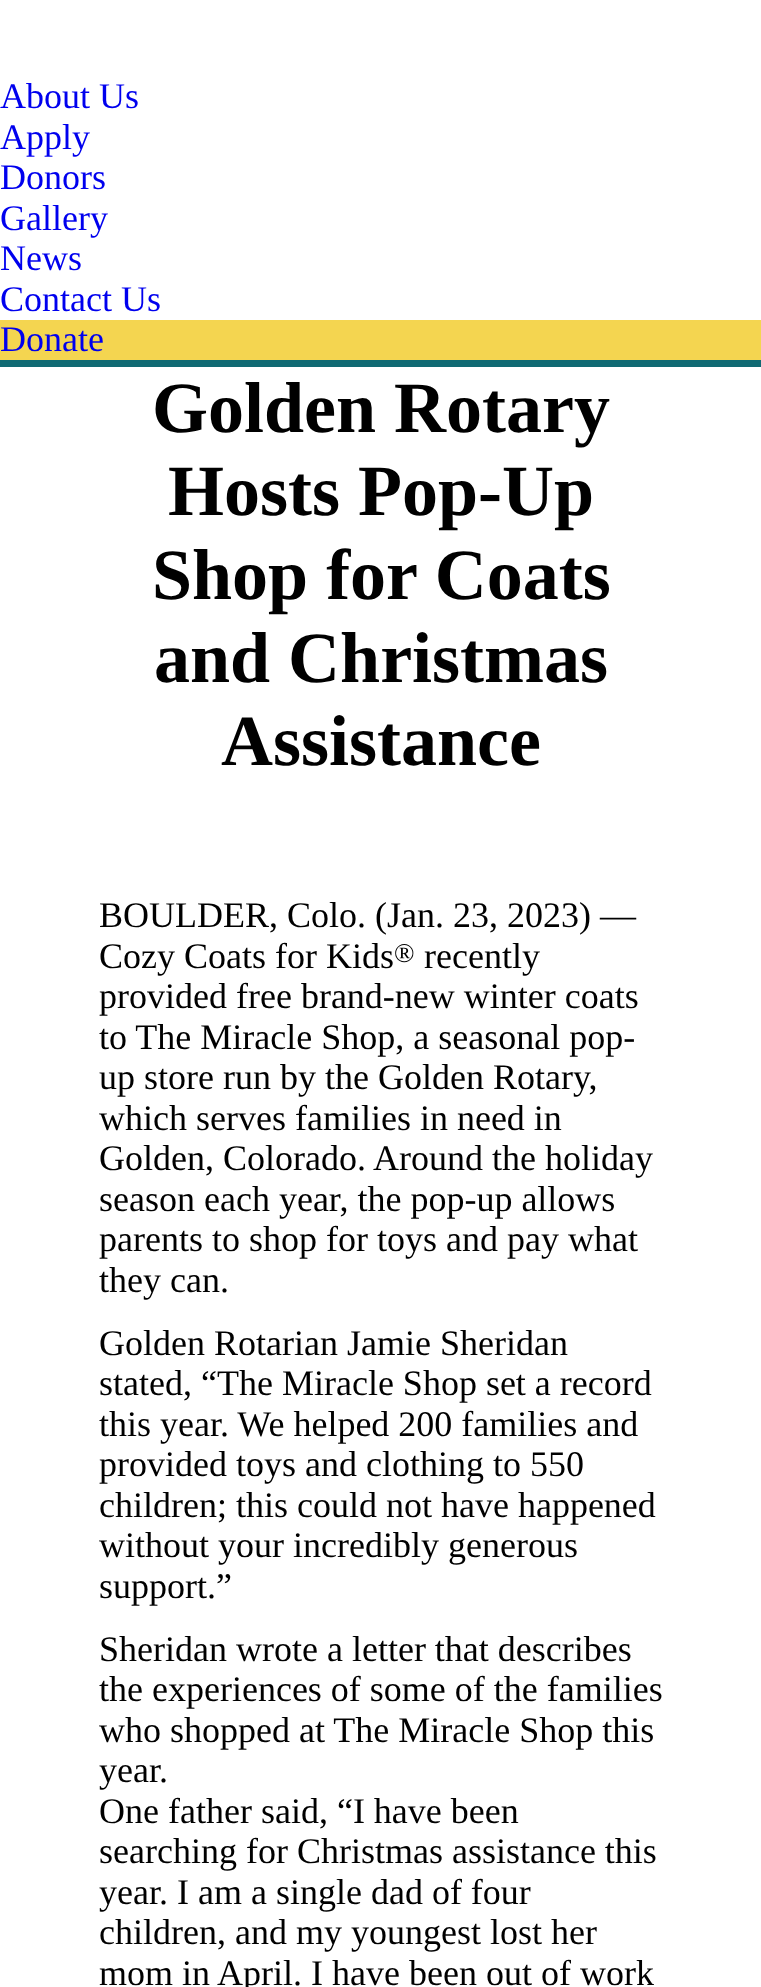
<svg xmlns="http://www.w3.org/2000/svg" width="761" height="1987" viewBox="0 0 761 1987">
  <style>
    .t1 { font: 36px Liberation Serif; fill: #00e; }
    .t2 { font: bold 72px Liberation Serif; fill: #000; }
    .t3 { font: 36px Liberation Serif; fill: #000; }
    .t4 { font: 27px Liberation Serif; fill: #000; }
  </style>
  <rect width="100%" height="100%" fill="#fff"/>
  <rect x="0" y="360" width="761" height="7" fill="#106a73"/>
  <text x="0" y="108" class="t1">About Us</text>
  <text x="0" y="149" class="t1">Apply</text>
  <text x="0" y="189" class="t1">Donors</text>
  <text x="0" y="230" class="t1">Gallery</text>
  <text x="0" y="270" class="t1">News</text>
  <text x="0" y="311" class="t1">Contact Us</text>
  <rect x="0" y="320" width="761" height="40" fill="#f4d550"/>
  <text x="0" y="351" class="t1">Donate</text>
  <text x="152" y="432" class="t2">Golden Rotary</text>
  <text x="168" y="515" class="t2">Hosts Pop-Up</text>
  <text x="152" y="599" class="t2">Shop for Coats</text>
  <text x="154" y="682" class="t2">and Christmas</text>
  <text x="221" y="765" class="t2">Assistance</text>
  <text x="99" y="927" class="t3">BOULDER, Colo. (Jan. 23, 2023) —</text>
  <text x="99" y="968" class="t3">Cozy Coats for Kids</text>
  <text x="394" y="962" class="t4">®</text>
  <text x="424" y="968" class="t3">recently</text>
  <text x="99" y="1008" class="t3">provided free brand-new winter coats</text>
  <text x="99" y="1049" class="t3">to The Miracle Shop, a seasonal pop-</text>
  <text x="99" y="1089" class="t3">up store run by the Golden Rotary,</text>
  <text x="99" y="1130" class="t3">which serves families in need in</text>
  <text x="99" y="1170" class="t3">Golden, Colorado. Around the holiday</text>
  <text x="99" y="1211" class="t3">season each year, the pop-up allows</text>
  <text x="99" y="1251" class="t3">parents to shop for toys and pay what</text>
  <text x="99" y="1292" class="t3">they can.</text>
  <text x="99" y="1355" class="t3">Golden Rotarian Jamie Sheridan</text>
  <text x="99" y="1395" class="t3">stated, “The Miracle Shop set a record</text>
  <text x="99" y="1436" class="t3">this year. We helped 200 families and</text>
  <text x="99" y="1476" class="t3">provided toys and clothing to 550</text>
  <text x="99" y="1517" class="t3">children; this could not have happened</text>
  <text x="99" y="1557" class="t3">without your incredibly generous</text>
  <text x="99" y="1598" class="t3">support.”</text>
  <text x="99" y="1661" class="t3">Sheridan wrote a letter that describes</text>
  <text x="99" y="1701" class="t3">the experiences of some of the families</text>
  <text x="99" y="1742" class="t3">who shopped at The Miracle Shop this</text>
  <text x="99" y="1782" class="t3">year.</text>
  <text x="99" y="1823" class="t3">One father said, “I have been</text>
  <text x="99" y="1863" class="t3">searching for Christmas assistance this</text>
  <text x="99" y="1904" class="t3">year. I am a single dad of four</text>
  <text x="99" y="1944" class="t3">children, and my youngest lost her</text>
  <text x="99" y="1985" class="t3">mom in April. I have been out of work</text>
</svg>
